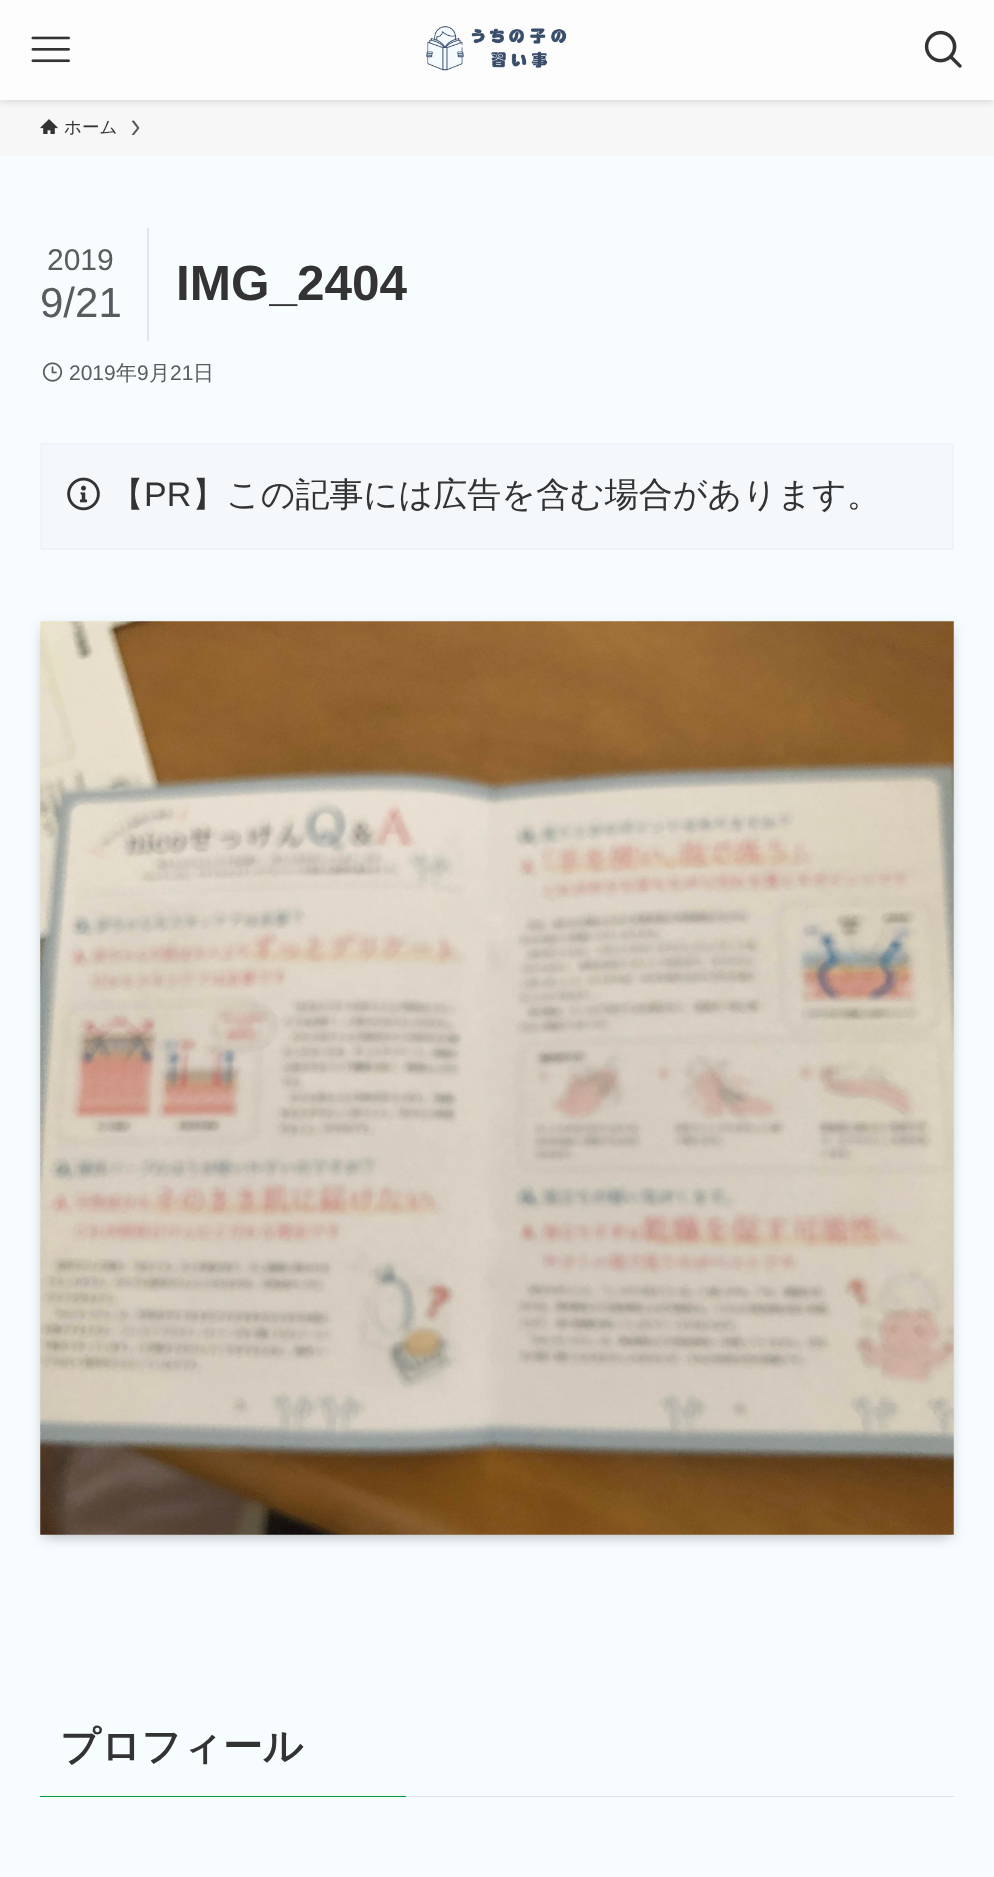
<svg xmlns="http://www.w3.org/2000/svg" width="994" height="1877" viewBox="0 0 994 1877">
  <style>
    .t1 { font: 500 17.5px WenQuanYi Zen Hei; fill: #333; }
    .t2 { font: 30px Liberation Sans; fill: #5a5b5c; }
    .t3 { font: 42px Liberation Sans; fill: #5a5b5c; }
    .t4 { font: bold 49.5px Liberation Sans; fill: #333; }
    .t5 { font: 21px Liberation Sans; fill: #5a5b5c; }
    .t6 { font: 500 21px WenQuanYi Zen Hei; fill: #5a5b5c; }
    .t7 { font: 500 34px WenQuanYi Zen Hei; fill: #333; }
    .t8 { font: 34px Liberation Sans; fill: #333; }
    .t9 { font: bold 39.75px WenQuanYi Zen Hei; fill: #333; }
  </style>
  <rect width="100%" height="100%" fill="#f7fcff"/>
  <rect x="0" y="100" width="994" height="56" fill="#f7f7f7"/>
  <rect x="0" y="2" width="994" height="100" fill="#0000001f" filter="blur(3.5px)"/>
  <rect x="0" y="0" width="994" height="100" fill="#fdfdfd"/>
  <image x="31" y="36" width="39" height="27" href="images/1.png"/>
  <image x="426" y="26" width="141" height="45" href="images/2.png"/>
  <image x="924" y="30" width="38" height="38" href="images/3.png"/>
  <image x="40" y="119" width="18" height="15" href="images/4.png"/>
  <text x="64" y="133" class="t1">ホーム</text>
  <path d="M134 120.5L131.5 121L137 128L131.5 135H134L139.5 128Z" fill="#5a5a5a"/>
  <rect x="147" y="228" width="2" height="113" fill="#e4e7e9"/>
  <text x="47" y="270" class="t2">2019</text>
  <text x="40" y="317" class="t3">9/21</text>
  <text x="176" y="300" class="t4">IMG_2404</text>
  <image x="42" y="362" width="21" height="20" href="images/5.png"/>
  <text x="69" y="380" class="t5">2019</text>
  <text x="116" y="380" class="t6">年</text>
  <text x="137" y="380" class="t5">9</text>
  <text x="149" y="380" class="t6">月</text>
  <text x="170" y="380" class="t5">21</text>
  <text x="193" y="380" class="t6">日</text>
  <rect x="41" y="444" width="912" height="105" rx="1" fill="#f4f8fb" stroke="#f0f4f7" stroke-width="2"/>
  <image x="67" y="477" width="33" height="34" href="images/6.png"/>
  <text x="110" y="506" class="t7">【</text>
  <text x="144" y="506" class="t8">PR</text>
  <text x="192" y="506" class="t7">】この記事には広告を含む場合があります。</text>
  <rect x="47" y="635" width="900" height="900" fill="#00000033" filter="blur(7px)"/>
  <rect x="40" y="625" width="914" height="913" fill="#0000001a" filter="blur(7px)"/>
  <image x="40" y="621" width="914" height="914" href="images/7.png"/>
  <text x="60" y="1760" class="t9">プロフィール</text>
  <rect x="40" y="1796" width="366" height="1" fill="#06963a"/>
  <rect x="406" y="1796" width="548" height="1" fill="#dfe2e3"/>
</svg>
